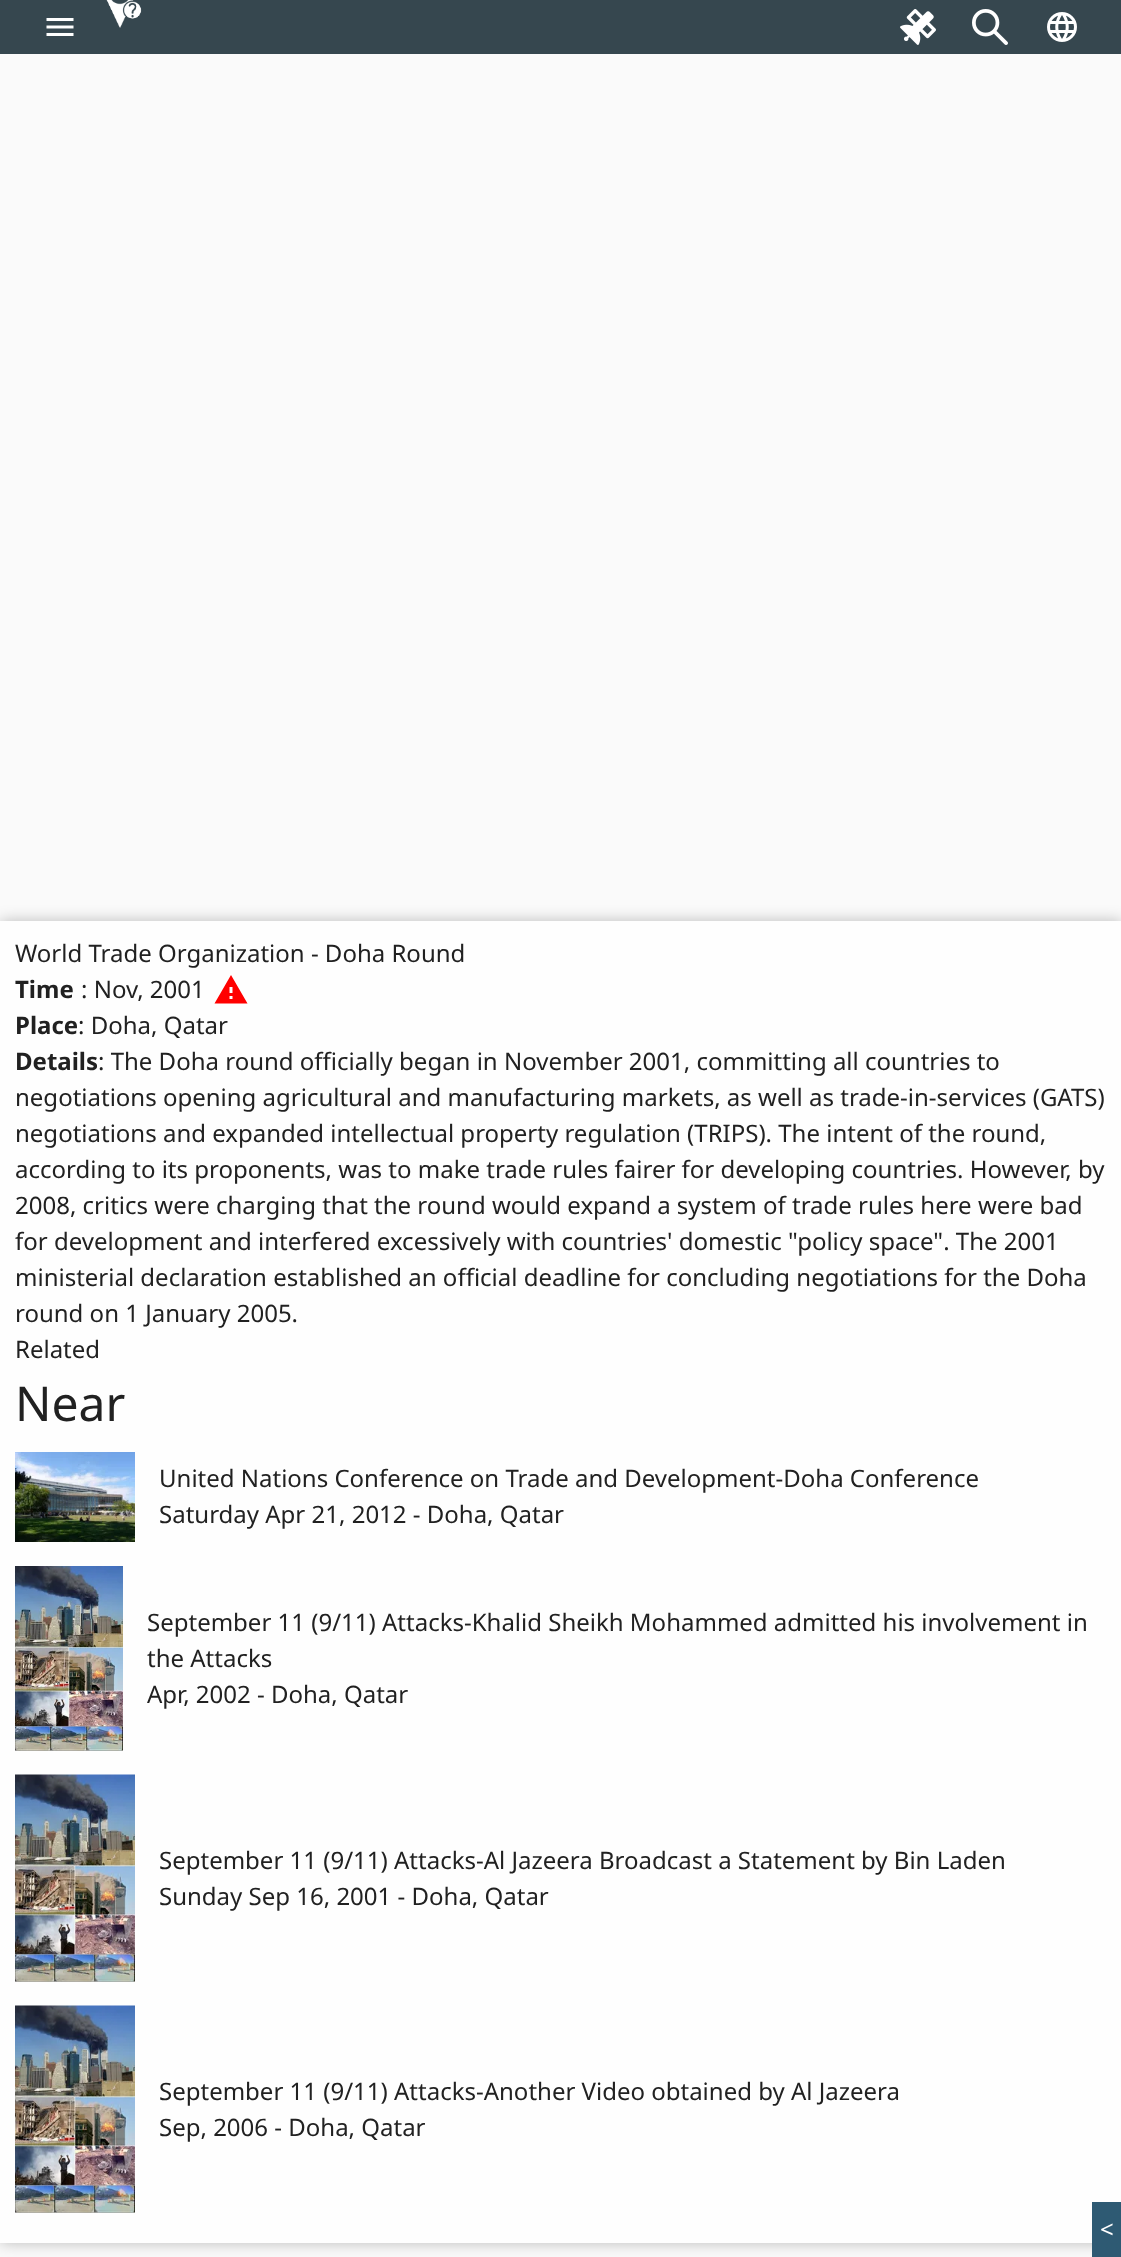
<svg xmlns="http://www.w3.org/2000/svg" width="1121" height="2257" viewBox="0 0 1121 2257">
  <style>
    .t1 { font: 24px Noto Sans; fill: #212121; }
    .t2 { font: bold 24px Noto Sans; fill: #212121; }
    .t3 { font: 48px Noto Sans; fill: #212121; }
    .t4 { font: 24px Noto Sans; fill: #fff; }
  </style>
  <defs>
    <clipPath id="clip1"><path d="M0 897H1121V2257H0ZM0 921H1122V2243H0Z" clip-rule="evenodd"/></clipPath>
  </defs>
  <rect width="100%" height="100%" fill="#fafafa"/>
  <rect x="0" y="0" width="1121" height="54" fill="#36474f"/>
  <image x="46" y="18" width="28" height="18" href="images/1.png"/>
  <image x="106" y="0" width="36" height="28" href="images/2.png"/>
  <image x="900" y="9" width="36" height="36" href="images/3.png"/>
  <image x="972" y="9" width="36" height="36" href="images/4.png"/>
  <image x="1047" y="12" width="30" height="30" href="images/5.png"/>
  <g clip-path="url(#clip1)">
    <rect x="0" y="921" width="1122" height="1322" fill="#00000040" filter="blur(7.5px)"/>
  </g>
  <rect x="0" y="921" width="1121" height="1322" fill="#ffffffab"/>
  <text x="15" y="962" class="t1">World Trade Organization - Doha Round</text>
  <text x="15" y="998" class="t2">Time</text>
  <text x="81" y="998" class="t1">: Nov, 2001</text>
  <path d="M232.5 993V987H229.5V993ZM232.5 999V996H229.5V999ZM214.5 1003.5L231 975L247.5 1003.5Z" fill="#f00"/>
  <text x="15" y="1034" class="t2">Place</text>
  <text x="78" y="1034" class="t1">: Doha, Qatar</text>
  <text x="15" y="1070" class="t2">Details</text>
  <text x="98" y="1070" class="t1">: The Doha round officially began in November 2001, committing all countries to</text>
  <text x="15" y="1106" class="t1">negotiations opening agricultural and manufacturing markets, as well as trade-in-services (GATS)</text>
  <text x="15" y="1142" class="t1">negotiations and expanded intellectual property regulation (TRIPS). The intent of the round,</text>
  <text x="15" y="1178" class="t1">according to its proponents, was to make trade rules fairer for developing countries. However, by</text>
  <text x="15" y="1214" class="t1">2008, critics were charging that the round would expand a system of trade rules here were bad</text>
  <text x="15" y="1250" class="t1">for development and interfered excessively with countries' domestic "policy space". The 2001</text>
  <text x="15" y="1286" class="t1">ministerial declaration established an official deadline for concluding negotiations for the Doha</text>
  <text x="15" y="1322" class="t1">round on 1 January 2005.</text>
  <text x="15" y="1358" class="t1">Related</text>
  <text x="15" y="1421" class="t3">Near</text>
  <image x="15" y="1452" width="120" height="90" href="images/6.png"/>
  <text x="159" y="1487" class="t1">United Nations Conference on Trade and Development-Doha Conference</text>
  <text x="159" y="1523" class="t1">Saturday Apr 21, 2012 - Doha, Qatar</text>
  <image x="15" y="1566" width="108" height="185" href="images/7.png"/>
  <text x="147" y="1631" class="t1">September 11 (9/11) Attacks-Khalid Sheikh Mohammed admitted his involvement in</text>
  <text x="147" y="1667" class="t1">the Attacks</text>
  <text x="147" y="1703" class="t1">Apr, 2002 - Doha, Qatar</text>
  <image x="15" y="1774" width="120" height="208" href="images/8.png"/>
  <text x="159" y="1869" class="t1">September 11 (9/11) Attacks-Al Jazeera Broadcast a Statement by Bin Laden</text>
  <text x="159" y="1905" class="t1">Sunday Sep 16, 2001 - Doha, Qatar</text>
  <image x="15" y="2005" width="120" height="208" href="images/8.png"/>
  <text x="159" y="2100" class="t1">September 11 (9/11) Attacks-Another Video obtained by Al Jazeera</text>
  <text x="159" y="2136" class="t1">Sep, 2006 - Doha, Qatar</text>
  <rect x="1092" y="2202" width="29" height="55" fill="#2e5a73"/>
  <text x="1100" y="2238" class="t4">&lt;</text>
</svg>
